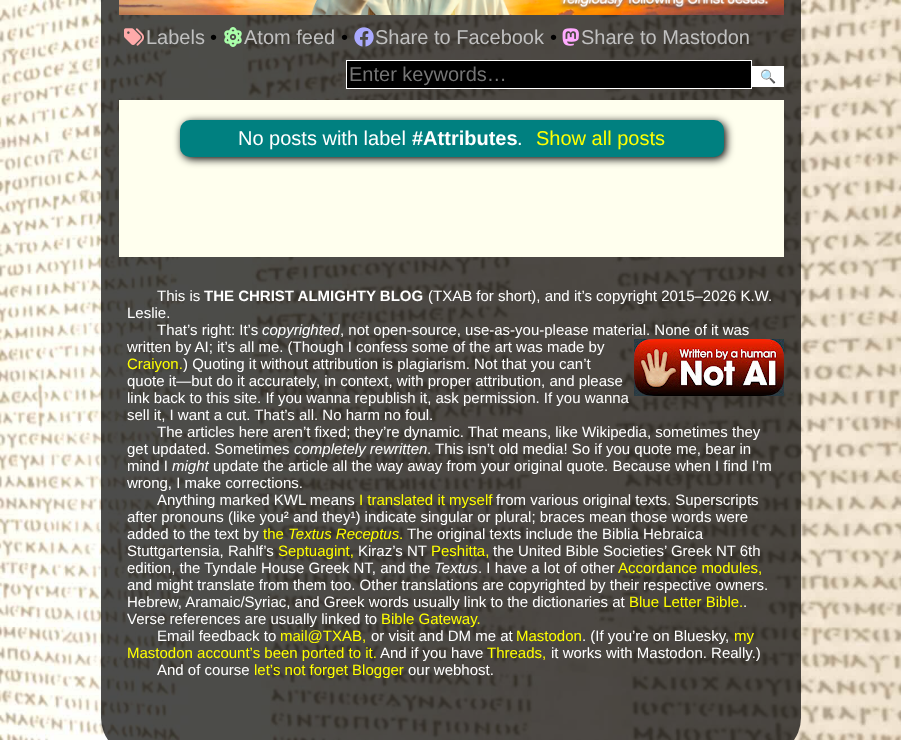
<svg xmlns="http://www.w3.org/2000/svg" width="901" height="740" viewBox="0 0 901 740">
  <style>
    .t1 { font: 20px Liberation Sans; fill: #c0c0c0; }
    .t2 { font: 20px Liberation Sans; fill: #000; }
    .t3 { font: 20px Liberation Sans; fill: #757575; }
    .t4 { font: 13px Noto Color Emoji; fill: #000; }
    .t5 { font: 20px Liberation Sans; fill: #fff; }
    .t6 { font: bold 20px Liberation Sans; fill: #fff; }
    .t7 { font: 20px Liberation Sans; fill: #ff0; }
    .t8 { font: 15px Liberation Sans; fill: #fff; }
    .t9 { font: bold 15px Liberation Sans; fill: #fff; }
    .t10 { font: italic 15px Liberation Sans; fill: #fff; }
    .t11 { font: 15px Liberation Sans; fill: #ff0; }
    .t12 { font: italic 15px Liberation Sans; fill: #ff0; }
  </style>
  <rect width="100%" height="100%" fill="#fff"/>
  <image x="0" y="0" width="901" height="740" href="images/1.png"/>
  <rect x="101" y="-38" width="700" height="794" rx="38" fill="#000000b3"/>
  <image x="119" y="0" width="665" height="15" href="images/2.png"/>
  <image x="124" y="28" width="20" height="18" href="images/3.png"/>
  <text x="146" y="44" class="t1">Labels</text>
  <text x="210" y="44" class="t2">•</text>
  <image x="224" y="27" width="18" height="20" href="images/4.png"/>
  <text x="244" y="44" class="t1">Atom feed</text>
  <text x="341" y="44" class="t2">•</text>
  <image x="354" y="27" width="20" height="20" href="images/5.png"/>
  <text x="375" y="44" class="t1">Share to Facebook</text>
  <text x="550" y="44" class="t2">•</text>
  <image x="562" y="28" width="17" height="18" href="images/6.png"/>
  <text x="581" y="44" class="t1">Share to Mastodon</text>
  <rect x="346.5" y="60.5" width="405" height="28" fill="#000" stroke="#fff"/>
  <text x="349" y="81" class="t3">Enter keywords…</text>
  <rect x="752" y="66" width="32" height="21" fill="#fff"/>
  <text x="760" y="81" class="t4">🔍</text>
  <rect x="119" y="100" width="665" height="157" fill="#ffe"/>
  <rect x="182" y="122" width="544" height="37" rx="10" fill="#000" filter="blur(4.5px)"/>
  <rect x="180" y="120" width="544" height="37" rx="10" fill="#008080"/>
  <text x="238" y="145" class="t5">No posts with label</text>
  <text x="412" y="145" class="t6">#Attributes</text>
  <text x="517" y="145" class="t5">.</text>
  <text x="536" y="145" class="t7">Show all posts</text>
  <text x="157" y="301" class="t8">This is</text>
  <text x="204" y="301" class="t9">THE CHRIST ALMIGHTY BLOG</text>
  <text x="428" y="301" class="t8">(TXAB for short), and it’s copyright 2015–2026 K.W.</text>
  <text x="127" y="318" class="t8">Leslie.</text>
  <text x="157" y="335" class="t8">That’s right: It’s</text>
  <text x="262" y="335" class="t10">copyrighted</text>
  <text x="340" y="335" class="t8">, not open-source, use-as-you-please material. None of it was</text>
  <text x="127" y="352" class="t8">written by AI; it’s all me. (Though I confess some of the art was made by</text>
  <image x="634" y="339" width="150" height="57" href="images/7.png"/>
  <text x="127" y="369" class="t11">Craiyon.</text>
  <text x="183" y="369" class="t8">) Quoting it without attribution is plagiarism. Not that you can’t</text>
  <text x="127" y="386" class="t8">quote it—but do it accurately, in context, with proper attribution, and please</text>
  <text x="127" y="403" class="t8">link back to this site. If you wanna republish it, ask permission. If you wanna</text>
  <text x="127" y="420" class="t8">sell it, I want a cut. That’s all. No harm no foul.</text>
  <text x="157" y="437" class="t8">The articles here aren’t fixed; they’re dynamic. That means, like Wikipedia, sometimes they</text>
  <text x="127" y="454" class="t8">get updated. Sometimes</text>
  <text x="294" y="454" class="t10">completely rewritten</text>
  <text x="427" y="454" class="t8">. This isn’t old media! So if you quote me, bear in</text>
  <text x="127" y="471" class="t8">mind I</text>
  <text x="172" y="471" class="t10">might</text>
  <text x="213" y="471" class="t8">update the article all the way away from your original quote. Because when I find I’m</text>
  <text x="127" y="488" class="t8">wrong, I make corrections.</text>
  <text x="157" y="505" class="t8">Anything marked KWL means</text>
  <text x="359" y="505" class="t11">I translated it myself</text>
  <text x="496" y="505" class="t8">from various original texts. Superscripts</text>
  <text x="127" y="522" class="t8">after pronouns (like you² and they¹) indicate singular or plural; braces mean those words were</text>
  <text x="127" y="539" class="t8">added to the text by</text>
  <text x="263" y="539" class="t11">the</text>
  <text x="288" y="539" class="t12">Textus Receptus</text>
  <text x="399" y="539" class="t11">.</text>
  <text x="407" y="539" class="t8">The original texts include the Biblia Hebraica</text>
  <text x="127" y="556" class="t8">Stuttgartensia, Rahlf’s</text>
  <text x="278" y="556" class="t11">Septuagint,</text>
  <text x="358" y="556" class="t8">Kiraz’s NT</text>
  <text x="431" y="556" class="t11">Peshitta,</text>
  <text x="493" y="556" class="t8">the United Bible Societies’ Greek NT 6th</text>
  <text x="127" y="573" class="t8">edition, the Tyndale House Greek NT, and the</text>
  <text x="434" y="573" class="t10">Textus</text>
  <text x="478" y="573" class="t8">. I have a lot of other</text>
  <text x="618" y="573" class="t11">Accordance modules,</text>
  <text x="127" y="590" class="t8">and might translate from them too. Other translations are copyrighted by their respective owners.</text>
  <text x="127" y="607" class="t8">Hebrew, Aramaic/Syriac, and Greek words usually link to the dictionaries at</text>
  <text x="629" y="607" class="t11">Blue Letter Bible.</text>
  <text x="743" y="607" class="t8">.</text>
  <text x="127" y="624" class="t8">Verse references are usually linked to</text>
  <text x="381" y="624" class="t11">Bible Gateway.</text>
  <text x="157" y="641" class="t8">Email feedback to</text>
  <text x="280" y="641" class="t11">mail@TXAB,</text>
  <text x="371" y="641" class="t8">or visit and DM me at</text>
  <text x="516" y="641" class="t11">Mastodon</text>
  <text x="582" y="641" class="t8">. (If you’re on Bluesky,</text>
  <text x="734" y="641" class="t11">my</text>
  <text x="127" y="658" class="t11">Mastodon account’s been ported to it.</text>
  <text x="380" y="658" class="t8">And if you have</text>
  <text x="487" y="658" class="t11">Threads,</text>
  <text x="551" y="658" class="t8">it works with Mastodon. Really.)</text>
  <text x="157" y="675" class="t8">And of course</text>
  <text x="254" y="675" class="t11">let’s not forget Blogger</text>
  <text x="408" y="675" class="t8">our webhost.</text>
</svg>
